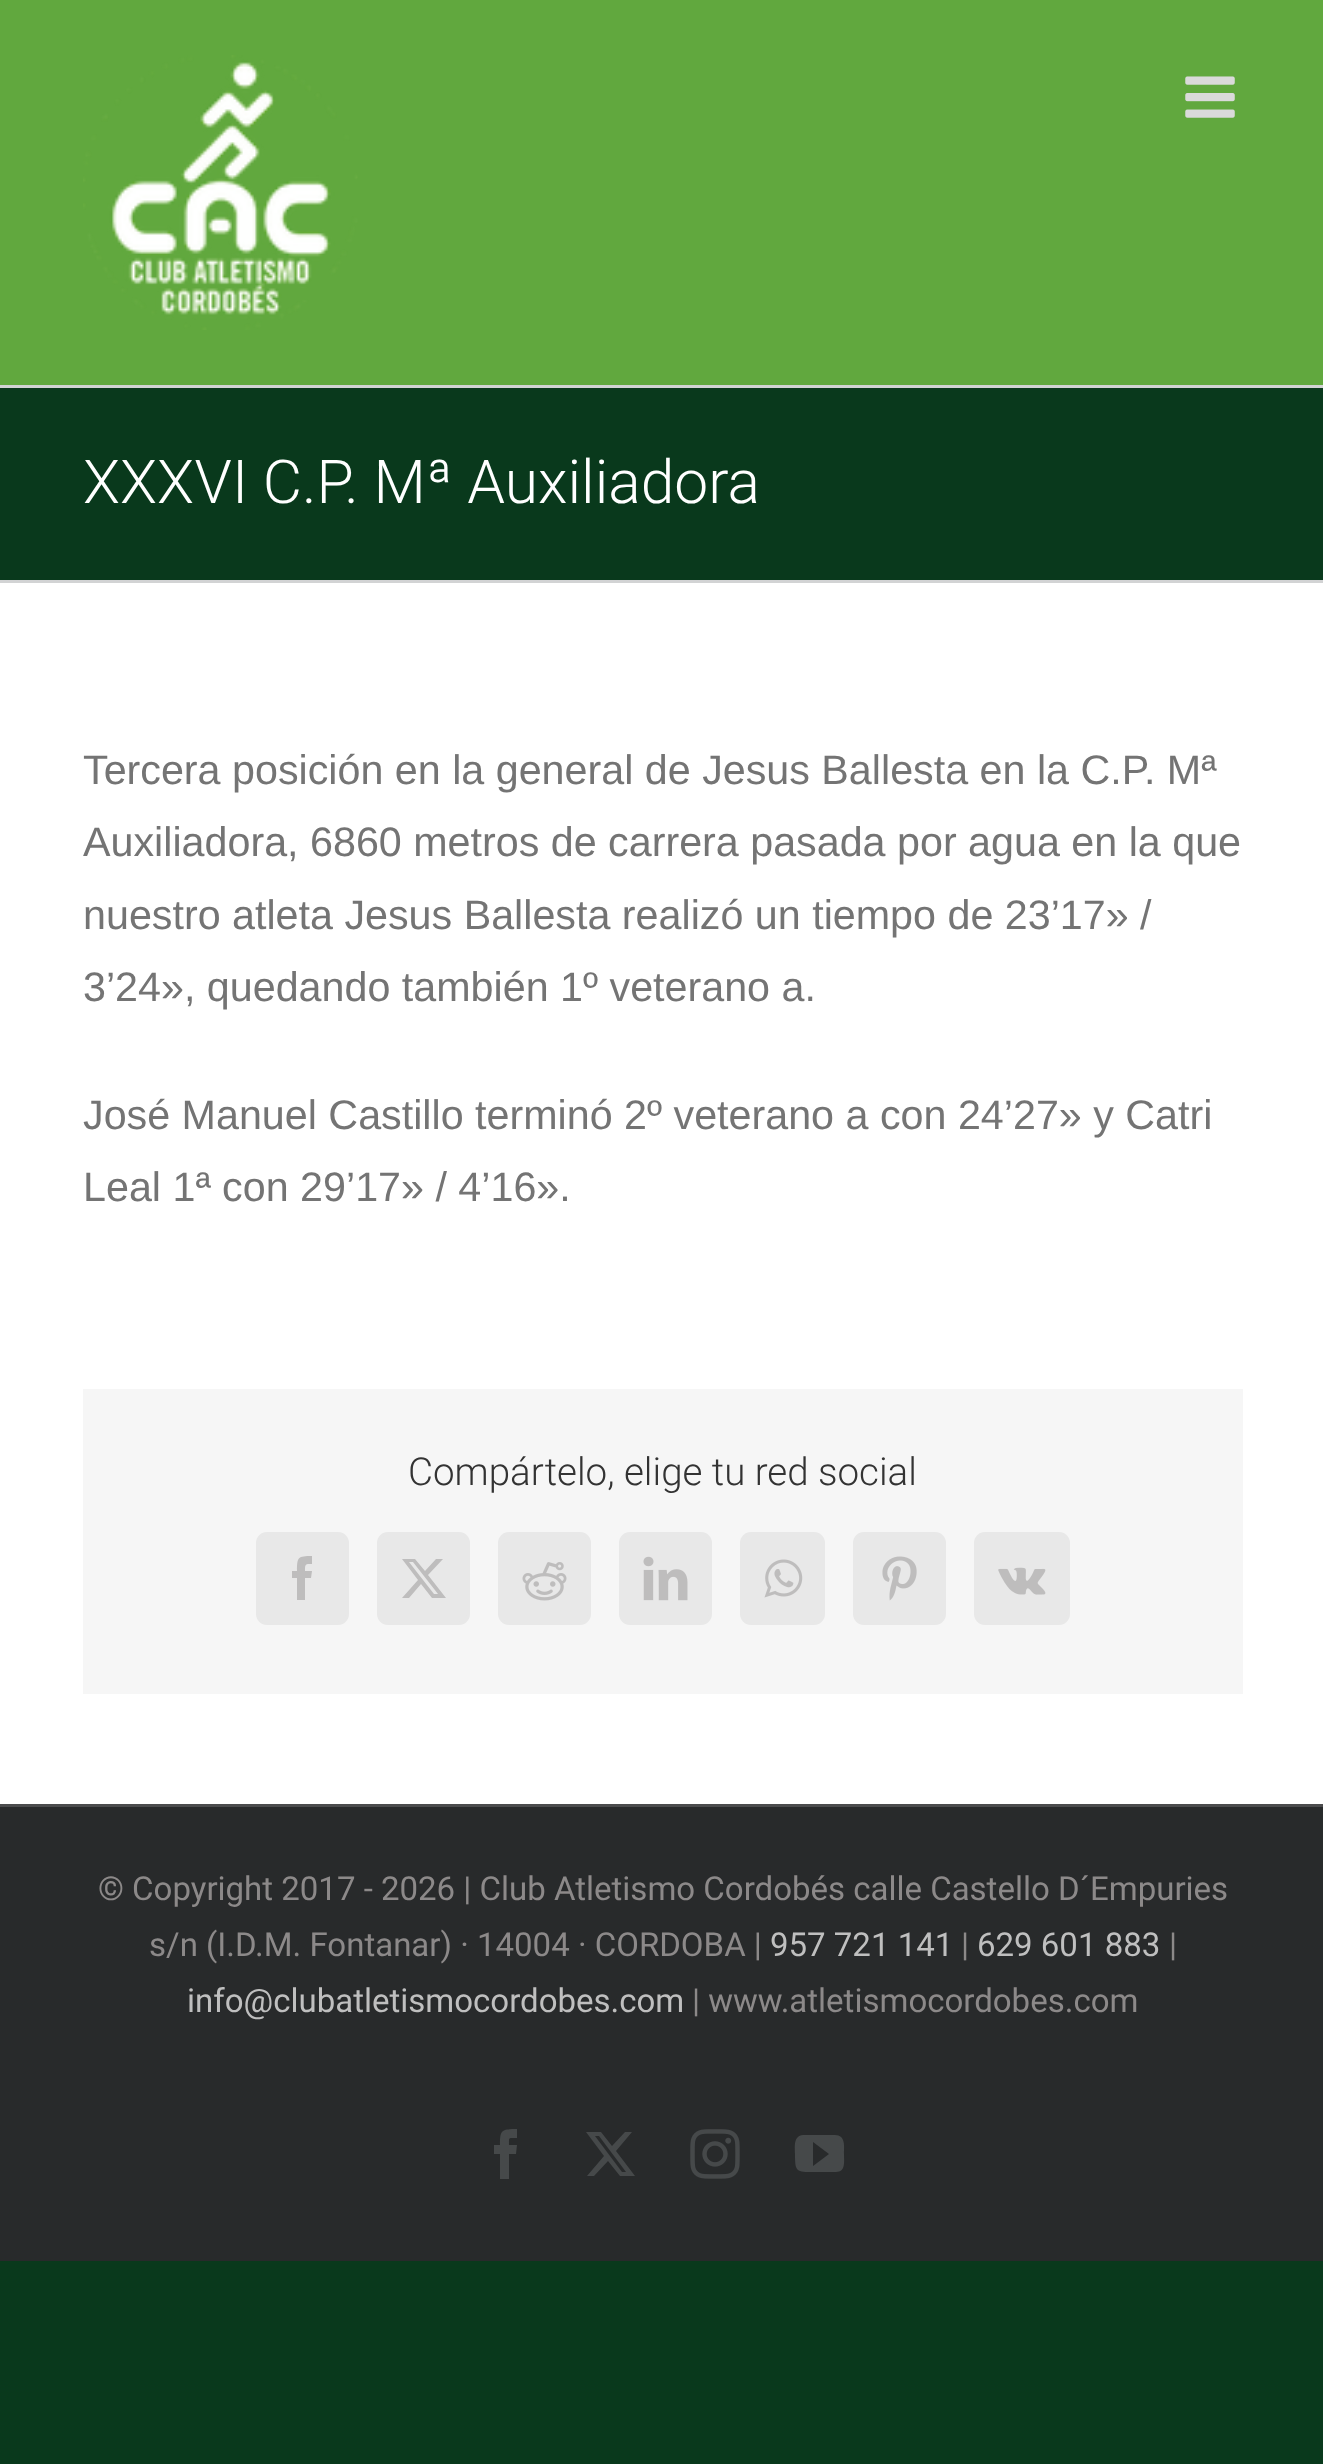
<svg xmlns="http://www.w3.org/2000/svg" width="1323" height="2464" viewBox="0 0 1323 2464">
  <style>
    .t1 { font: 300 60.5px Roboto; fill: #fff; }
    .t2 { font: 41.25px Liberation Sans; fill: #747474; }
    .t3 { font: 300 38.5px Roboto; fill: #333; }
    .t4 { font: 33px Roboto; fill: #8c8989; }
    .t5 { font: 33px Roboto; fill: #bfbfbf; }
  </style>
  <rect width="100%" height="100%" fill="#09391c"/>
  <rect x="0" y="583" width="1323" height="1221" fill="#fff"/>
  <rect x="0" y="0" width="1323" height="385" fill="#61a83e"/>
  <image x="83" y="55" width="275" height="275" href="images/1.png"/>
  <image x="1185" y="76" width="50" height="42" href="images/2.png"/>
  <rect x="0" y="385" width="1323" height="3" fill="#d2d3d4"/>
  <rect x="0" y="580" width="1323" height="3" fill="#d2d3d4"/>
  <text x="83" y="503" class="t1">XXXVI C.P. Mª Auxiliadora</text>
  <text x="83" y="784" class="t2">Tercera posición en la general de Jesus Ballesta en la C.P. Mª</text>
  <text x="83" y="856" class="t2">Auxiliadora, 6860 metros de carrera pasada por agua en la que</text>
  <text x="83" y="929" class="t2">nuestro atleta Jesus Ballesta realizó un tiempo de 23’17» /</text>
  <text x="83" y="1001" class="t2">3’24», quedando también 1º veterano a.</text>
  <text x="83" y="1129" class="t2">José Manuel Castillo terminó 2º veterano a con 24’27» y Catri</text>
  <text x="83" y="1201" class="t2">Leal 1ª con 29’17» / 4’16».</text>
  <rect x="83" y="1389" width="1160" height="305" fill="#f6f6f6"/>
  <text x="408" y="1485" class="t3">Compártelo, elige tu red social</text>
  <rect x="257.5" y="1533.5" width="90" height="90" rx="9.5" fill="#e8e8e8" stroke="#e8e8e8" stroke-width="3"/>
  <path d="M305 1600H297V1578H292V1571H297C297 1557 298 1556 312 1556V1564C305 1564 305 1564 305 1571H312L311 1578H305Z" fill="#bebdbd"/>
  <rect x="378.5" y="1533.5" width="90" height="90" rx="9.5" fill="#e8e8e8" stroke="#e8e8e8" stroke-width="3"/>
  <path d="M436 1559H443L428 1575L446 1598H432L421 1584L409 1598H402L418 1580L402 1559H415L425 1571ZM434 1594H438L413 1562H409Z" fill="#bebdbd"/>
  <rect x="499.5" y="1533.5" width="90" height="90" rx="9.5" fill="#e8e8e8" stroke="#e8e8e8" stroke-width="3"/>
  <image x="522" y="1562" width="45" height="39" href="images/3.png"/>
  <rect x="620.5" y="1533.5" width="90" height="90" rx="9.5" fill="#e8e8e8" stroke="#e8e8e8" stroke-width="3"/>
  <image x="643" y="1556" width="45" height="45" href="images/4.png"/>
  <rect x="741.5" y="1533.5" width="82" height="90" rx="9.5" fill="#e8e8e8" stroke="#e8e8e8" stroke-width="3"/>
  <image x="764" y="1559" width="39" height="39" href="images/5.png"/>
  <rect x="854.5" y="1533.5" width="90" height="90" rx="9.5" fill="#e8e8e8" stroke="#e8e8e8" stroke-width="3"/>
  <image x="882" y="1556" width="35" height="45" href="images/6.png"/>
  <rect x="975.5" y="1533.5" width="93" height="90" rx="9.5" fill="#e8e8e8" stroke="#e8e8e8" stroke-width="3"/>
  <image x="998" y="1567" width="48" height="28" href="images/7.png"/>
  <rect x="0" y="1807" width="1323" height="454" fill="#282a2b"/>
  <rect x="0" y="1804" width="1323" height="3" fill="#4b4c4d"/>
  <text x="98" y="1900" class="t4">© Copyright 2017 - 2026 | Club Atletismo Cordobés calle Castello D´Empuries</text>
  <text x="149" y="1956" class="t4">s/n (I.D.M. Fontanar) · 14004 · CORDOBA |</text>
  <text x="770" y="1956" class="t5">957 721 141</text>
  <text x="961" y="1956" class="t4">|</text>
  <text x="977" y="1956" class="t5">629 601 883</text>
  <text x="1169" y="1956" class="t4">|</text>
  <text x="187" y="2012" class="t5">info@clubatletismocordobes.com</text>
  <text x="692" y="2012" class="t4">| www.atletismocordobes.com</text>
  <path d="M509 2179H500V2154H494V2145H500C500 2130 501 2129 517 2129V2138C508 2138 509 2137 509 2145H517L516 2154H509Z" fill="#46494a"/>
  <path d="M625 2132H632L616 2151L635 2176H620L608 2161L594 2176H587L604 2156L586 2132H601L612 2146ZM622 2172H626L599 2136H595Z" fill="#46494a"/>
  <image x="690" y="2129" width="50" height="50" href="images/8.png"/>
  <path d="M835 2135H803C793 2136 795 2147 795 2154C795 2172 796 2172 814 2172H836C846 2172 844 2161 844 2154C844 2147 846 2135 835 2135ZM813 2166V2142L829 2154Z" fill="#46494a"/>
</svg>
